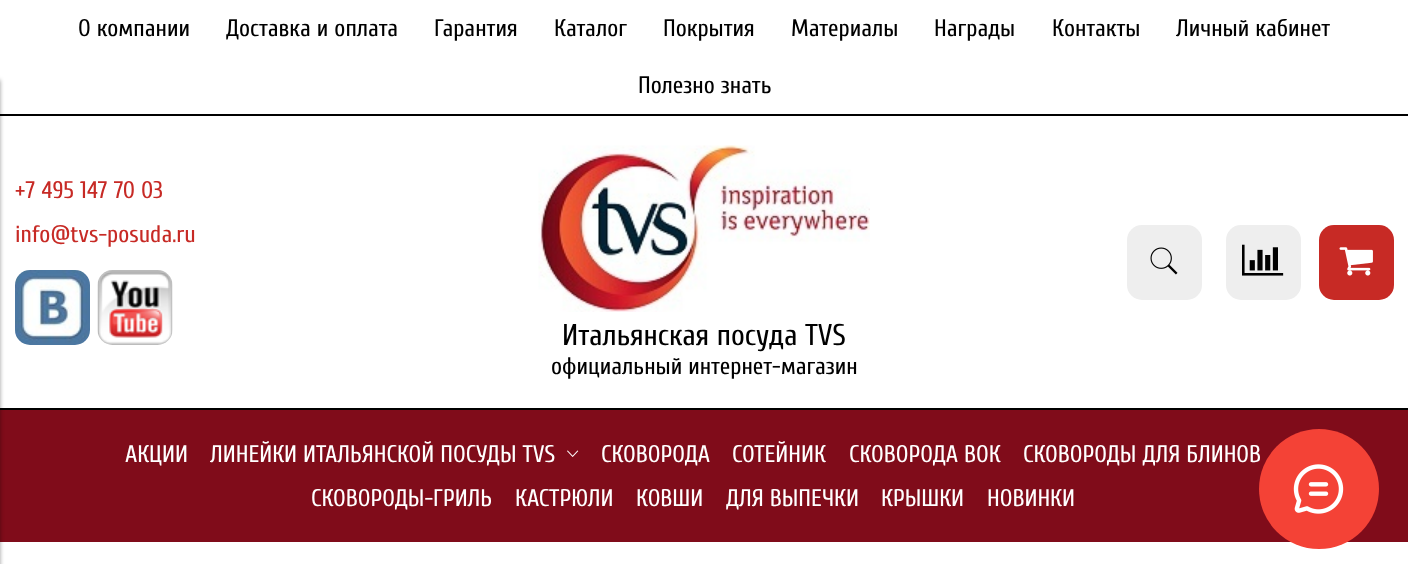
<svg xmlns="http://www.w3.org/2000/svg" width="1408" height="564" viewBox="0 0 1408 564">
  <style>
    .t1 { font: 24px Cuprum; fill: #000; }
    .t2 { font: 24px Cuprum; fill: #c72a25; }
    .t3 { font: 30px Cuprum; fill: #000; }
    .t4 { font: 24px Cuprum; fill: #fff; }
  </style>
  <rect width="100%" height="100%" fill="#fff"/>
  <rect x="0" y="114" width="1408" height="2" fill="#000"/>
  <rect x="0" y="408" width="1408" height="2" fill="#000"/>
  <rect x="0" y="410" width="1408" height="132" fill="#800c1a"/>
  <rect x="-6" y="80" width="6" height="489" fill="#00000066" filter="blur(2px)"/>
  <text x="78" y="36" class="t1">О компании</text>
  <text x="226" y="36" class="t1">Доставка и оплата</text>
  <text x="434" y="36" class="t1">Гарантия</text>
  <text x="554" y="36" class="t1">Каталог</text>
  <text x="663" y="36" class="t1">Покрытия</text>
  <text x="791" y="36" class="t1">Материалы</text>
  <text x="934" y="36" class="t1">Награды</text>
  <text x="1052" y="36" class="t1">Контакты</text>
  <text x="1176" y="36" class="t1">Личный кабинет</text>
  <text x="638" y="93" class="t1">Полезно знать</text>
  <text x="15" y="198" class="t2">+7 495 147 70 03</text>
  <text x="15" y="242" class="t2">info@tvs-posuda.ru</text>
  <image x="15" y="270" width="75" height="75" href="images/1.png"/>
  <image x="97" y="270" width="76" height="75" href="images/2.png"/>
  <rect x="1127" y="225" width="75" height="75" rx="15" fill="#eee"/>
  <image x="1150" y="247" width="28" height="28" href="images/3.png"/>
  <rect x="1226" y="225" width="75" height="75" rx="15" fill="#eee"/>
  <image x="1242" y="244" width="42" height="32" href="images/4.png"/>
  <rect x="1319" y="225" width="75" height="75" rx="15" fill="#c72a25"/>
  <image x="1339" y="247" width="34" height="29" href="images/5.png"/>
  <image x="538" y="145" width="332" height="167" href="images/6.png"/>
  <text x="562" y="345" class="t3">Итальянская посуда TVS</text>
  <text x="551" y="374" class="t1">официальный интернет-магазин</text>
  <text x="125" y="462" class="t4">АКЦИИ</text>
  <text x="210" y="462" class="t4">ЛИНЕЙКИ ИТАЛЬЯНСКОЙ ПОСУДЫ TVS</text>
  <image x="567" y="450" width="12" height="7" href="images/7.png"/>
  <text x="601" y="462" class="t4">СКОВОРОДА</text>
  <text x="732" y="462" class="t4">СОТЕЙНИК</text>
  <text x="849" y="462" class="t4">СКОВОРОДА ВОК</text>
  <text x="1023" y="462" class="t4">СКОВОРОДЫ ДЛЯ БЛИНОВ</text>
  <text x="311" y="506" class="t4">СКОВОРОДЫ-ГРИЛЬ</text>
  <text x="515" y="506" class="t4">КАСТРЮЛИ</text>
  <text x="636" y="506" class="t4">КОВШИ</text>
  <text x="726" y="506" class="t4">ДЛЯ ВЫПЕЧКИ</text>
  <text x="881" y="506" class="t4">КРЫШКИ</text>
  <text x="987" y="506" class="t4">НОВИНКИ</text>
  <circle cx="1319" cy="489" r="60" fill="#f44236"/>
  <image x="1293" y="464" width="51" height="50" href="images/8.png"/>
</svg>
